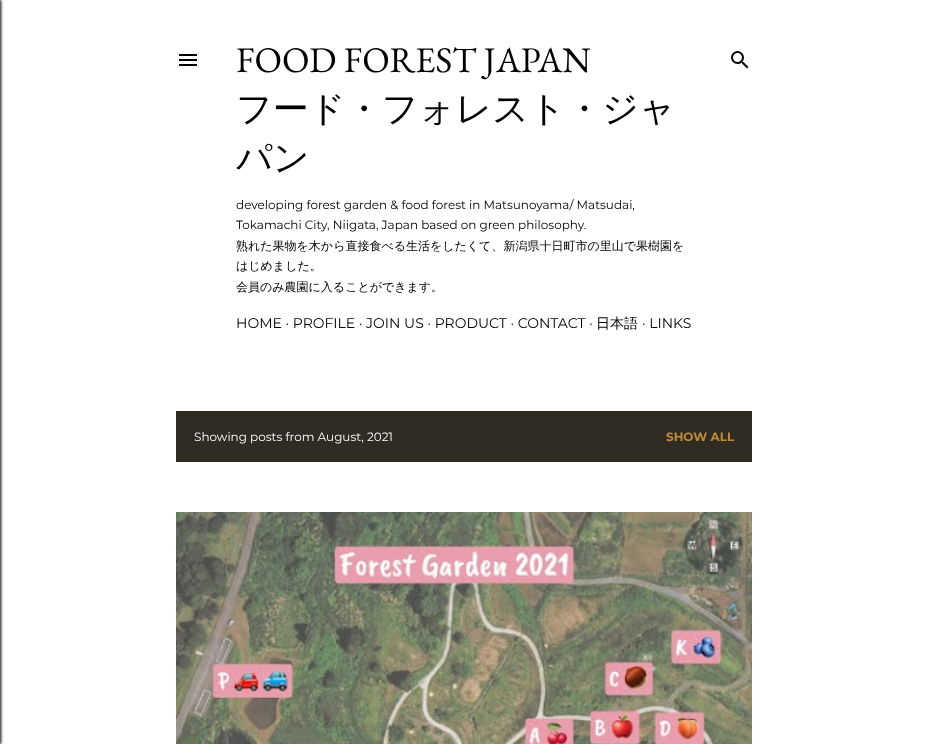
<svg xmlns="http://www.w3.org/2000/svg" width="928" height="744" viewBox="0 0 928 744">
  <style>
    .t1 { font: 36px EB Garamond; fill: #000; }
    .t2 { font: 500 36px WenQuanYi Zen Hei; fill: #000; }
    .t3 { font: 12px Montserrat; fill: #000; }
    .t4 { font: 500 12px WenQuanYi Zen Hei; fill: #000; }
    .t5 { font: 14px Montserrat; fill: #000; }
    .t6 { font: 500 14px WenQuanYi Zen Hei; fill: #000; }
    .t7 { font: 12px Montserrat; fill: #fff; }
    .t8 { font: bold 12px Montserrat; fill: #bf8b38; }
  </style>
  <rect width="100%" height="100%" fill="#fff"/>
  <rect x="-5" y="0" width="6" height="744" fill="#000" filter="blur(1.5px)"/>
  <image x="179" y="54" width="18" height="12" href="images/1.png"/>
  <text x="236" y="72" class="t1">FOOD FOREST JAPAN</text>
  <text x="236" y="121" class="t2">フード・フォレスト・ジャ</text>
  <text x="236" y="170" class="t2">パン</text>
  <text x="236" y="209" class="t3">developing forest garden &amp; food forest in Matsunoyama/ Matsudai,</text>
  <text x="236" y="229" class="t3">Tokamachi City, Niigata, Japan based on green philosophy.</text>
  <text x="236" y="250" class="t4">熟れた果物を木から直接食べる生活をしたくて、新潟県十日町市の里山で果樹園を</text>
  <text x="236" y="270" class="t4">はじめました。</text>
  <text x="236" y="291" class="t4">会員のみ農園に入ることができます。</text>
  <text x="236" y="328" class="t5">HOME · PROFILE · JOIN US · PRODUCT · CONTACT ·</text>
  <text x="596" y="328" class="t6">日本語</text>
  <text x="642" y="328" class="t5">· LINKS</text>
  <image x="731" y="51" width="18" height="18" href="images/2.png"/>
  <rect x="176" y="411" width="576" height="51" fill="#302c24"/>
  <text x="194" y="441" class="t7">Showing posts from August, 2021</text>
  <text x="666" y="441" class="t8">SHOW ALL</text>
  <image x="176" y="512" width="576" height="232" href="images/3.png"/>
</svg>
